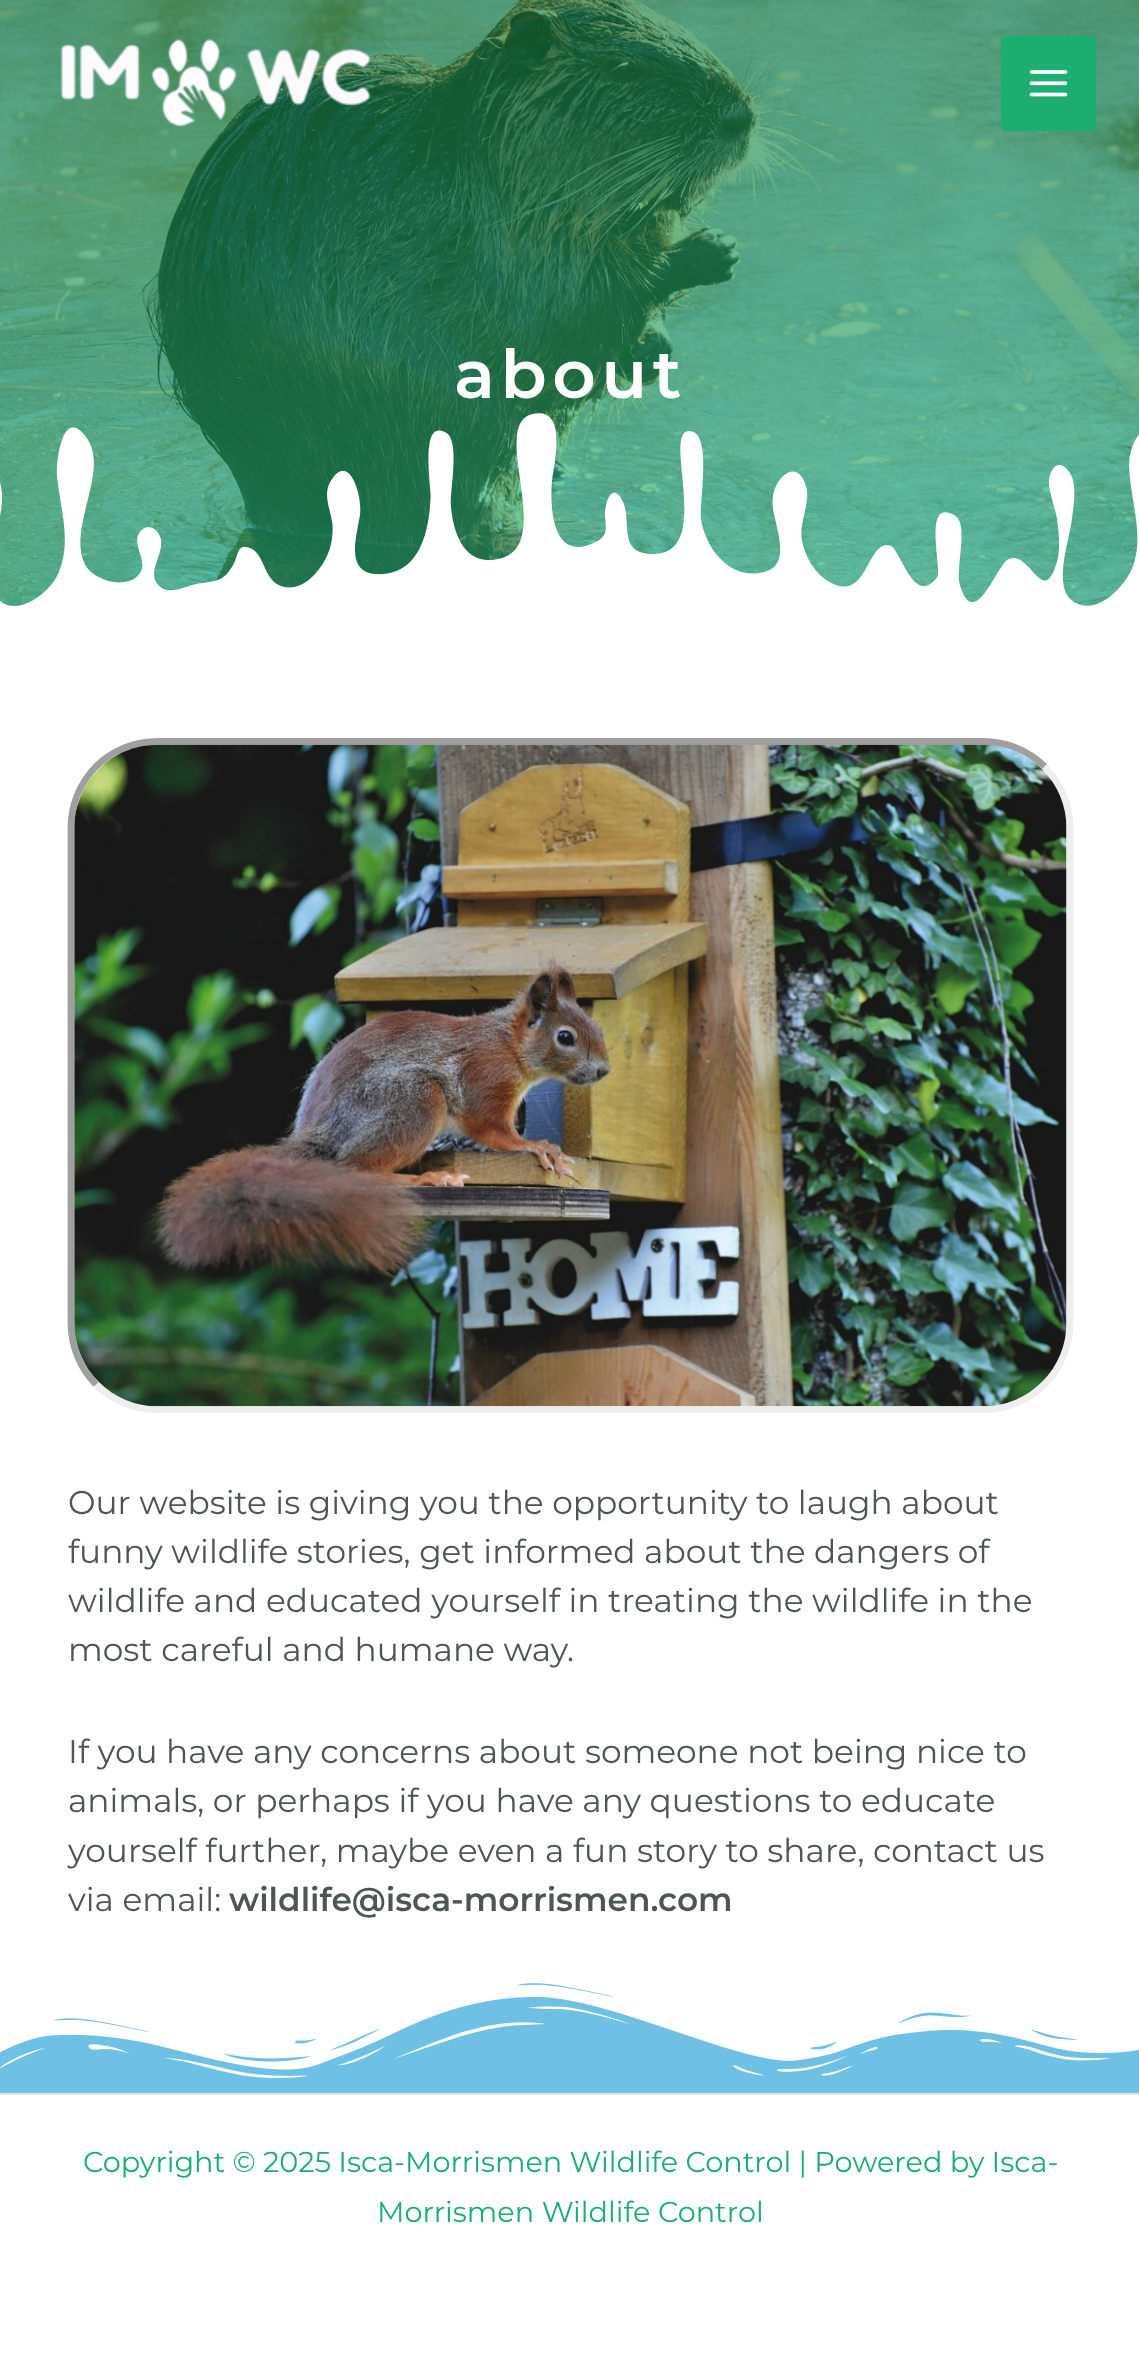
<svg xmlns="http://www.w3.org/2000/svg" width="1139" height="2364" viewBox="0 0 1139 2364">
  <style>
    .t1 { font: 600 67.5px Montserrat; letter-spacing: 5.5px; fill: #fff; }
    .t2 { font: 32.8px Montserrat; fill: #4e5652; }
    .t3 { font: 600 32.8px Montserrat; fill: #4e5652; }
    .t4 { font: 28.75px Montserrat; fill: #1bae70; }
  </style>
  <defs>
    <linearGradient id="g1" gradientUnits="userSpaceOnUse" x1="570" y1="-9" x2="570" y2="626"><stop offset="0" stop-color="#06752e" stop-opacity="0.6"/><stop offset="1" stop-color="#1bae70" stop-opacity="0.6"/></linearGradient>
  </defs>
  <rect width="100%" height="100%" fill="#fff"/>
  <image x="0" y="0" width="1139" height="607" href="images/3.png"/>
  <rect x="0" y="0" width="1139" height="607" fill="url(#g1)"/>
  <image x="60" y="38" width="311" height="89" href="images/1.png"/>
  <rect x="1001" y="36" width="95" height="95" rx="5" fill="#1bae70"/>
  <image x="1029" y="70" width="39" height="27" href="images/2.png"/>
  <text x="454" y="398" class="t1">about</text>
  <image x="0" y="413" width="1139" height="213" href="images/4.png"/>
  <path d="M1044.5 766.5C1060.5 783 1070 805 1070 828V1323C1070 1346 1060.5 1368 1044.5 1384.5C1028.5 1400.5 1006 1409.5 983 1409.5H157.5C134.5 1409.5 112.5 1400.5 96 1384.5" fill="none" stroke="#eee" stroke-width="6.8"/>
  <path d="M96 1384.5C80 1368 71 1346 71 1323V828C71 805 80 783 96 766.5C112.5 750.5 134.5 741.5 157.5 741.5H983C1006 741.5 1028.5 750.5 1044.5 766.5" fill="none" stroke="#9f9f9f" stroke-width="6.8"/>
  <image x="74" y="744" width="993" height="663" href="images/5.png"/>
  <text x="68" y="1514" class="t2">Our website is giving you the opportunity to laugh about</text>
  <text x="68" y="1563" class="t2">funny wildlife stories, get informed about the dangers of</text>
  <text x="68" y="1612" class="t2">wildlife and educated yourself in treating the wildlife in the</text>
  <text x="68" y="1661" class="t2">most careful and humane way.</text>
  <text x="68" y="1763" class="t2">If you have any concerns about someone not being nice to</text>
  <text x="68" y="1812" class="t2">animals, or perhaps if you have any questions to educate</text>
  <text x="68" y="1862" class="t2">yourself further, maybe even a fun story to share, contact us</text>
  <text x="68" y="1911" class="t2">via email:</text>
  <text x="229" y="1911" class="t3">wildlife@isca-morrismen.com</text>
  <image x="0" y="1983" width="1139" height="110" href="images/6.png"/>
  <rect x="0" y="2093" width="1139" height="2" fill="#dbe8eb"/>
  <text x="83" y="2172" word-spacing="-0.25" class="t4">Copyright © 2025 Isca-Morrismen Wildlife Control | Powered by Isca-</text>
  <text x="377" y="2222" class="t4">Morrismen Wildlife Control</text>
</svg>
